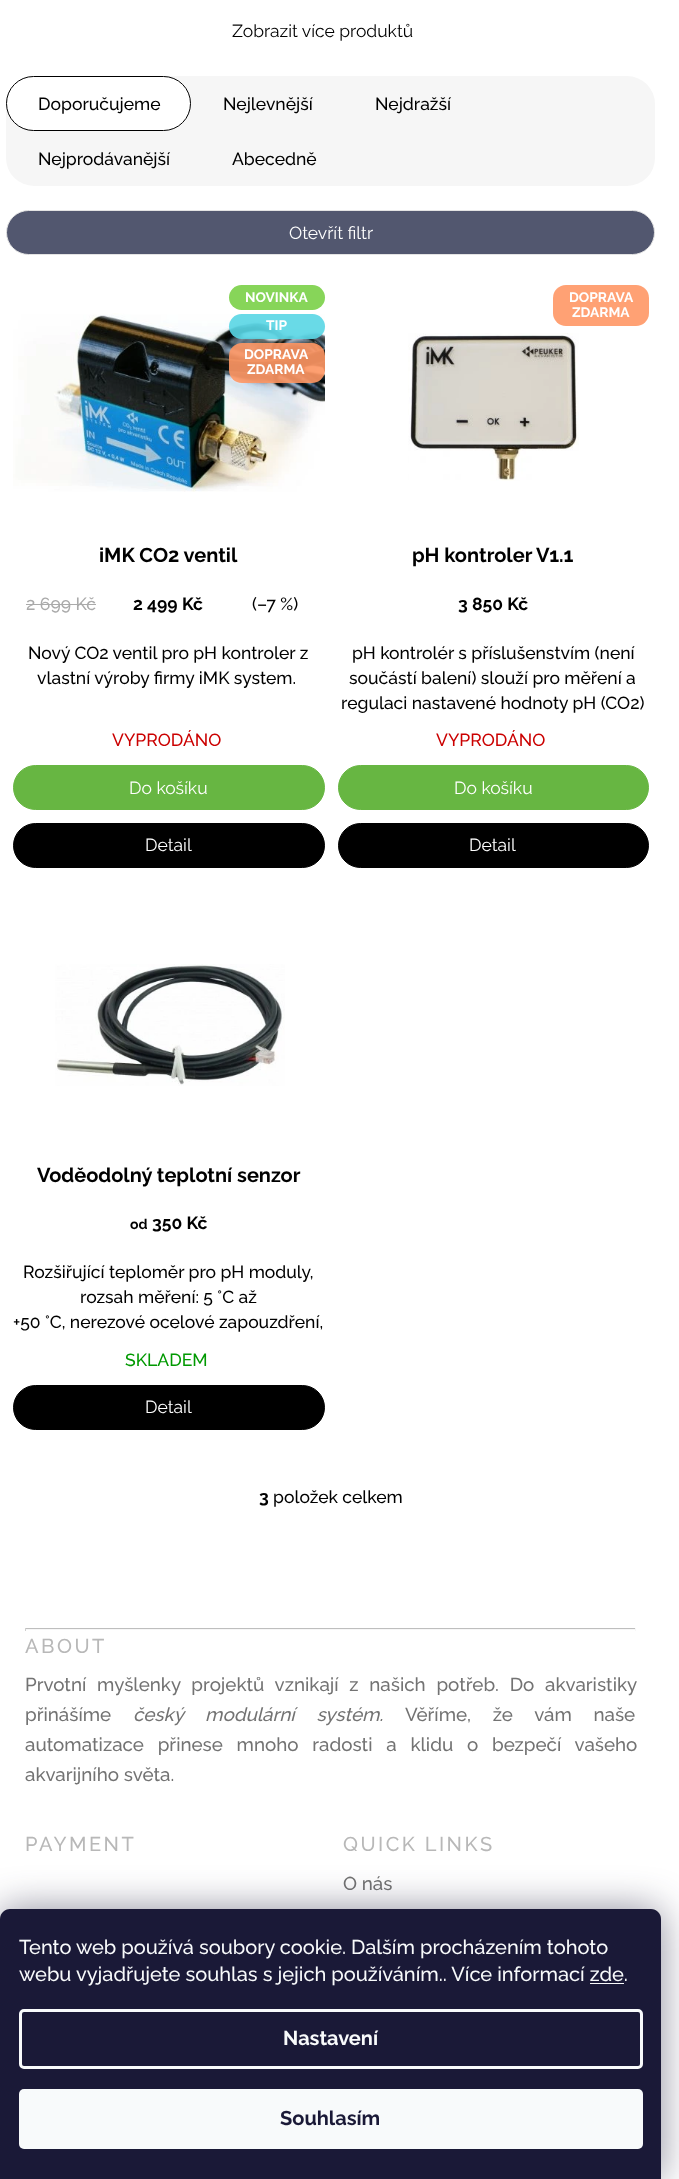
<svg xmlns="http://www.w3.org/2000/svg" width="679" height="2179" viewBox="0 0 679 2179">
  <style>
    .t1 { font: 17.5px Raleway; fill: #000; }
    .t2 { font: 500 17.5px Raleway; fill: #000; }
    .t3 { font: 17.5px Raleway; fill: #fff; }
    .t4 { font: bold 13.75px Raleway; fill: #fff; }
    .t5 { font: bold 20px Raleway; fill: #000; }
    .t6 { font: 500 17.5px Raleway; fill: #aaa; }
    .t7 { font: bold 17.5px Raleway; fill: #000; }
    .t8 { font: 500 17.5px Raleway; fill: #cb0000; }
    .t9 { font: bold 14px Raleway; fill: #000; }
    .t10 { font: 500 17.5px Raleway; fill: #009901; }
    .t11 { font: 500 20px Raleway; letter-spacing: 2.5px; fill: #b8b8b8; }
    .t12 { font: 500 18.75px Raleway; fill: #737373; }
    .t13 { font: italic 500 18.75px Raleway; fill: #737373; }
    .t14 { font: 500 20px Raleway; fill: #f8fafb; }
    .t15 { font: bold 20px Raleway; fill: #f8fafb; }
    .t16 { font: bold 20px Raleway; fill: #1a1937; }
  </style>
  <rect width="100%" height="100%" fill="#fff"/>
  <text x="232" y="37" class="t1">Zobrazit více produktů</text>
  <rect x="6" y="76" width="649" height="110" rx="28" fill="#f6f6f6"/>
  <rect x="6.5" y="76.5" width="184" height="54" rx="27" fill="#fff" stroke="#000"/>
  <text x="38" y="110" class="t2">Doporučujeme</text>
  <text x="223" y="110" class="t2">Nejlevnější</text>
  <text x="375" y="110" class="t2">Nejdražší</text>
  <text x="38" y="165" class="t2">Nejprodávanější</text>
  <text x="232" y="165" class="t2">Abecedně</text>
  <rect x="6.5" y="210.5" width="648" height="44" rx="22" fill="#52576f" stroke="#e3e3e3"/>
  <text x="289" y="239" class="t3">Otevřít filtr</text>
  <rect x="229" y="285" width="96" height="25" rx="12.5" fill="#87d559"/>
  <text x="245" y="302" class="t4">NOVINKA</text>
  <image x="13" y="313" width="312" height="179" href="images/1.png"/>
  <rect x="229" y="314" width="96" height="25" rx="12.5" fill="#59d6e4e6"/>
  <text x="266" y="330" class="t4">TIP</text>
  <rect x="229" y="343" width="96" height="40" rx="13" fill="#ff9764e6"/>
  <text x="244" y="359" class="t4">DOPRAVA</text>
  <text x="247" y="374" class="t4">ZDARMA</text>
  <text x="99" y="562" class="t5">iMK CO2 ventil</text>
  <text x="26" y="610" class="t6">2 699 Kč</text>
  <rect x="26" y="604" width="70" height="1" fill="#aaa"/>
  <text x="133" y="610" class="t7">2 499 Kč</text>
  <text x="252" y="610" class="t2">(–7 %)</text>
  <text x="28" y="659" class="t2">Nový CO2 ventil pro pH kontroler z</text>
  <text x="37" y="684" class="t2">vlastní výroby firmy iMK system.</text>
  <text x="112" y="746" class="t8">VYPRODÁNO</text>
  <rect x="13.5" y="765.5" width="311" height="44" rx="22" fill="#67b642" stroke="#67b642"/>
  <text x="129" y="794" class="t3">Do košíku</text>
  <rect x="13.5" y="823.5" width="311" height="44" rx="22" fill="#000" stroke="#000"/>
  <text x="145" y="851" class="t3">Detail</text>
  <rect x="553" y="285" width="96" height="41" rx="13" fill="#ffa174"/>
  <text x="569" y="302" class="t4">DOPRAVA</text>
  <text x="572" y="317" class="t4">ZDARMA</text>
  <image x="408" y="333" width="171" height="148" href="images/2.png"/>
  <text x="412" y="562" class="t5">pH kontroler V1.1</text>
  <text x="458" y="610" class="t7">3 850 Kč</text>
  <text x="352" y="659" class="t2">pH kontrolér s příslušenstvím (není</text>
  <text x="349" y="684" class="t2">součástí balení) slouží pro měření a</text>
  <text x="341" y="709" class="t2">regulaci nastavené hodnoty pH (CO2)</text>
  <text x="436" y="746" class="t8">VYPRODÁNO</text>
  <rect x="338.5" y="765.5" width="310" height="44" rx="22" fill="#67b642" stroke="#67b642"/>
  <text x="454" y="794" class="t3">Do košíku</text>
  <rect x="338.5" y="823.5" width="310" height="44" rx="22" fill="#000" stroke="#000"/>
  <text x="469" y="851" class="t3">Detail</text>
  <image x="55" y="964" width="230" height="122" href="images/3.png"/>
  <text x="37" y="1182" class="t5">Voděodolný teplotní senzor</text>
  <text x="130" y="1229" class="t9">od</text>
  <text x="152" y="1229" class="t7">350 Kč</text>
  <text x="23" y="1278" class="t2">Rozšiřující teploměr pro pH moduly,</text>
  <text x="80" y="1303" class="t2">rozsah měření: 5 °C až</text>
  <text x="13" y="1328" class="t2">+50 °C, nerezové ocelové zapouzdření,</text>
  <text x="125" y="1366" class="t10">SKLADEM</text>
  <rect x="13.5" y="1385.5" width="311" height="44" rx="22" fill="#000" stroke="#000"/>
  <text x="145" y="1413" class="t3">Detail</text>
  <text x="259" y="1503" class="t7">3</text>
  <text x="273" y="1503" class="t2">položek celkem</text>
  <rect x="25" y="1628" width="611" height="1" fill="#bebebe"/>
  <rect x="635" y="1628" width="1" height="3" fill="#f7f7f7"/>
  <rect x="25" y="1629" width="611" height="1" fill="#f7f7f7"/>
  <rect x="25" y="1628" width="1" height="3" fill="#cfcfcf"/>
  <text x="25" y="1653" class="t11">ABOUT</text>
  <text x="25" y="1691" word-spacing="6" class="t12">Prvotní myšlenky projektů vznikají z našich potřeb. Do akvaristiky</text>
  <text x="25" y="1721" class="t12">přinášíme</text>
  <text x="133" y="1721" word-spacing="17" class="t13">český modulární systém.</text>
  <text x="405" y="1721" word-spacing="17" class="t12">Věříme, že vám naše</text>
  <text x="25" y="1751" word-spacing="9" class="t12">automatizace přinese mnoho radosti a klidu o bezpečí vašeho</text>
  <text x="25" y="1781" class="t12">akvarijního světa.</text>
  <text x="25" y="1851" class="t11">PAYMENT</text>
  <text x="343" y="1851" class="t11">QUICK LINKS</text>
  <text x="343" y="1890" class="t12">O nás</text>
  <rect x="0" y="1909" width="661" height="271" rx="10" fill="#1b193980" filter="blur(19px)"/>
  <path d="M10 1909H651C656.5 1909 661 1913.5 661 1919V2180H0V1919C0 1913.5 4.5 1909 10 1909Z" fill="#1a1937"/>
  <text x="19" y="1954" class="t14">Tento web používá soubory cookie. Dalším procházením tohoto</text>
  <text x="19" y="1981" class="t14">webu vyjadřujete souhlas s jejich používáním.. Více informací zde.</text>
  <rect x="590" y="1983" width="34" height="1" fill="#f8fafb"/>
  <rect x="20.5" y="2010.5" width="621" height="57" rx="3.5" fill="none" stroke="#f8fafb" stroke-width="3"/>
  <text x="283" y="2045" class="t15">Nastavení</text>
  <rect x="19" y="2089" width="624" height="60" rx="5" fill="#f8fafb"/>
  <text x="280" y="2125" class="t16">Souhlasím</text>
</svg>
